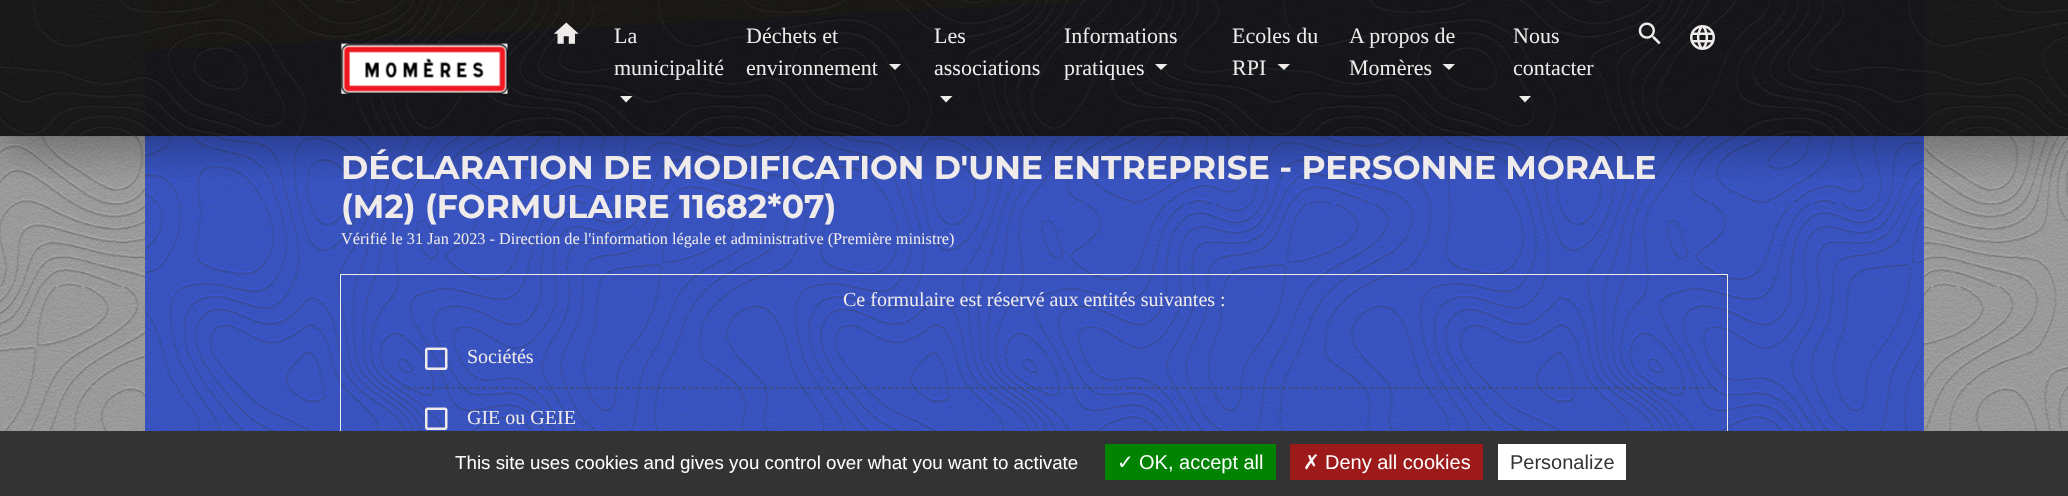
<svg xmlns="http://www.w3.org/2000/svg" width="2068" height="496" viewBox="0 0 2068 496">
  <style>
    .t1 { font: 22px Liberation Serif; fill: #f0ebeb; }
    .t2 { font: bold 33px Montserrat; fill: #f0ebeb; }
    .t3 { font: 16.25px Liberation Serif; fill: #f0ebeb; }
    .t4 { font: 20px Liberation Serif; fill: #f0ebeb; }
    .t5 { font: 18.75px Liberation Sans; fill: #fff; }
    .t6 { font: 20px DejaVu Sans; fill: #fff; }
    .t7 { font: 20px Liberation Sans; fill: #fff; }
    .t8 { font: 20px Liberation Sans; fill: #333; }
  </style>
  <defs>
    <clipPath id="clip1"><rect x="145" y="0" width="1779" height="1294"/></clipPath>
    <clipPath id="clip2"><rect x="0" y="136" width="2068" height="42"/></clipPath>
  </defs>
  <rect width="100%" height="100%" fill="#c8c8c8"/>
  <image x="0" y="0" width="2068" height="431" href="images/1.png"/>
  <rect x="145" y="0" width="1779" height="431" fill="#375fff"/>
  <image x="145" y="0" width="1779" height="431" href="images/8.png"/>
  <g clip-path="url(#clip1)">
    <path d="M114-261L1952-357L1969-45L130 51Z" fill="#f2cf06"/>
  </g>
  <image x="145" y="0" width="955" height="51" href="images/7.png"/>
  <g clip-path="url(#clip2)">
    <rect x="0" y="16" width="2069" height="137" fill="#00000040" filter="blur(18px)"/>
  </g>
  <rect x="0" y="0" width="2068" height="136" fill="#000000f2"/>
  <image x="0" y="0" width="2068" height="137" href="images/2.png"/>
  <image x="340" y="43" width="168" height="51" href="images/3.png"/>
  <image x="554" y="22" width="25" height="22" href="images/4.png"/>
  <text x="614" y="43" class="t1">La</text>
  <text x="614" y="75" class="t1">municipalité</text>
  <path d="M620 96H632.5L626 102.5Z" fill="#f0ebeb"/>
  <text x="746" y="43" class="t1">Déchets et</text>
  <text x="746" y="75" class="t1">environnement</text>
  <path d="M889 64H901L895 70Z" fill="#f0ebeb"/>
  <text x="934" y="43" class="t1">Les</text>
  <text x="934" y="75" class="t1">associations</text>
  <path d="M940 96H952.5L946 102.5Z" fill="#f0ebeb"/>
  <text x="1064" y="43" class="t1">Informations</text>
  <text x="1064" y="75" class="t1">pratiques</text>
  <path d="M1155 64H1167.5L1161 70Z" fill="#f0ebeb"/>
  <text x="1232" y="43" class="t1">Ecoles du</text>
  <text x="1232" y="75" class="t1">RPI</text>
  <path d="M1277.5 64H1290L1284 70Z" fill="#f0ebeb"/>
  <text x="1349" y="43" class="t1">A propos de</text>
  <text x="1349" y="75" class="t1">Momères</text>
  <path d="M1442.5 64H1455L1449 70Z" fill="#f0ebeb"/>
  <text x="1513" y="43" class="t1">Nous</text>
  <text x="1513" y="75" class="t1">contacter</text>
  <path d="M1519 96H1531L1525 102.5Z" fill="#f0ebeb"/>
  <image x="1638" y="22" width="23" height="23" href="images/5.png"/>
  <image x="1690" y="25" width="25" height="25" href="images/6.png"/>
  <text x="341" y="179" class="t2">DÉCLARATION DE MODIFICATION D'UNE ENTREPRISE - PERSONNE MORALE</text>
  <text x="341" y="218" class="t2">(M2) (FORMULAIRE 11682*07)</text>
  <text x="341" y="244" class="t3">Vérifié le 31 Jan 2023 - Direction de l'information légale et administrative (Première ministre)</text>
  <rect x="340.5" y="274.5" width="1387" height="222" fill="none" stroke="#f0ebeb"/>
  <text x="843" y="306" class="t4">Ce formulaire est réservé aux entités suivantes :</text>
  <image x="425" y="347" width="23" height="23" href="images/9.png"/>
  <text x="467" y="363" class="t4">Sociétés</text>
  <path d="M401 388H1716" fill="none" stroke="#414856" stroke-width="1.2" stroke-dasharray="3.75 2.5"/>
  <image x="425" y="407" width="23" height="23" href="images/10.png"/>
  <text x="467" y="424" class="t4">GIE ou GEIE</text>
  <rect x="0" y="431" width="2068" height="65" fill="#333"/>
  <text x="455" y="469" class="t5">This site uses cookies and gives you control over what you want to activate</text>
  <rect x="1105" y="444" width="171" height="36" fill="#008300"/>
  <text x="1117" y="469" class="t6">✓</text>
  <text x="1139" y="469" class="t7">OK, accept all</text>
  <rect x="1290" y="444" width="193" height="36" fill="#9c1a1a"/>
  <text x="1303" y="469" class="t6">✗</text>
  <text x="1325" y="469" class="t7">Deny all cookies</text>
  <rect x="1498" y="444" width="128" height="36" fill="#fff"/>
  <text x="1510" y="469" class="t8">Personalize</text>
</svg>
